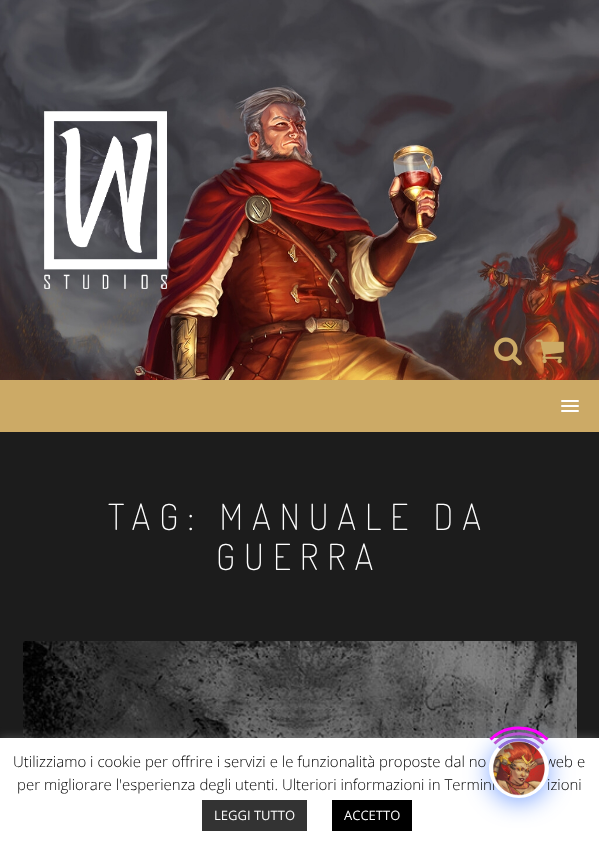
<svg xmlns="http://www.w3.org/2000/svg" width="599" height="848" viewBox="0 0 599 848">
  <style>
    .t1 { font: 200 36px Dosis; letter-spacing: 9px; fill: #fff; }
    .t2 { font: 300 15px Open Sans; fill: #000; }
    .t3 { font: 13px Open Sans; fill: #fff; }
  </style>
  <rect width="100%" height="100%" fill="#fff"/>
  <image x="0" y="0" width="599" height="380" href="images/1.png"/>
  <image x="44" y="111" width="123" height="178" href="images/2.png"/>
  <image x="494" y="337" width="28" height="29" href="images/3.png"/>
  <image x="536" y="339" width="28" height="25" href="images/4.png"/>
  <rect x="0" y="380" width="599" height="52" fill="#ca6"/>
  <rect x="561" y="400" width="18" height="2" rx="1" fill="#fff"/>
  <rect x="561" y="405" width="18" height="2" rx="1" fill="#fff"/>
  <rect x="561" y="410" width="18" height="2" rx="1" fill="#fff"/>
  <rect x="0" y="432" width="599" height="306" fill="#1c1c1c"/>
  <text x="108" y="530" class="t1">TAG: MANUALE DA</text>
  <text x="216" y="570" class="t1">GUERRA</text>
  <image x="23" y="641" width="554" height="97" href="images/5.png"/>
  <rect x="0" y="737" width="599" height="110" fill="#acabab4d" filter="blur(5px)"/>
  <rect x="0" y="738" width="599" height="110" fill="#fff"/>
  <rect x="489" y="742" width="60" height="60" rx="30" fill="#004dff80" filter="blur(12px)"/>
  <text x="545" y="767" class="t2">web e</text>
  <text x="17" y="790" class="t2">per migliorare l'esperienza degli utenti. Ulteriori informazioni in Termini</text>
  <text x="547" y="790" class="t2">izioni</text>
  <circle cx="519" cy="768" r="30" fill="#fff"/>
  <image x="493" y="741" width="52" height="55" href="images/6.png"/>
  <path d="M499 748C510 737 528 737 539 748" fill="none" stroke="#9370db" stroke-width="3"/>
  <path d="M494.5 743.5C508 730.5 530 730.5 543.5 743.5" fill="none" stroke="#ba55d3" stroke-width="3"/>
  <path d="M490.5 739.5C506 724 532 724 547.5 739.5" fill="none" stroke="#f0f" stroke-width="3"/>
  <text x="13" y="767" class="t2">Utilizziamo i cookie per offrire i servizi e le funzionalità proposte dal no</text>
  <rect x="202" y="800" width="105" height="31" fill="#333"/>
  <text x="214" y="820" class="t3">LEGGI TUTTO</text>
  <rect x="332" y="800" width="80" height="31" fill="#000"/>
  <text x="344" y="820" class="t3">ACCETTO</text>
</svg>
